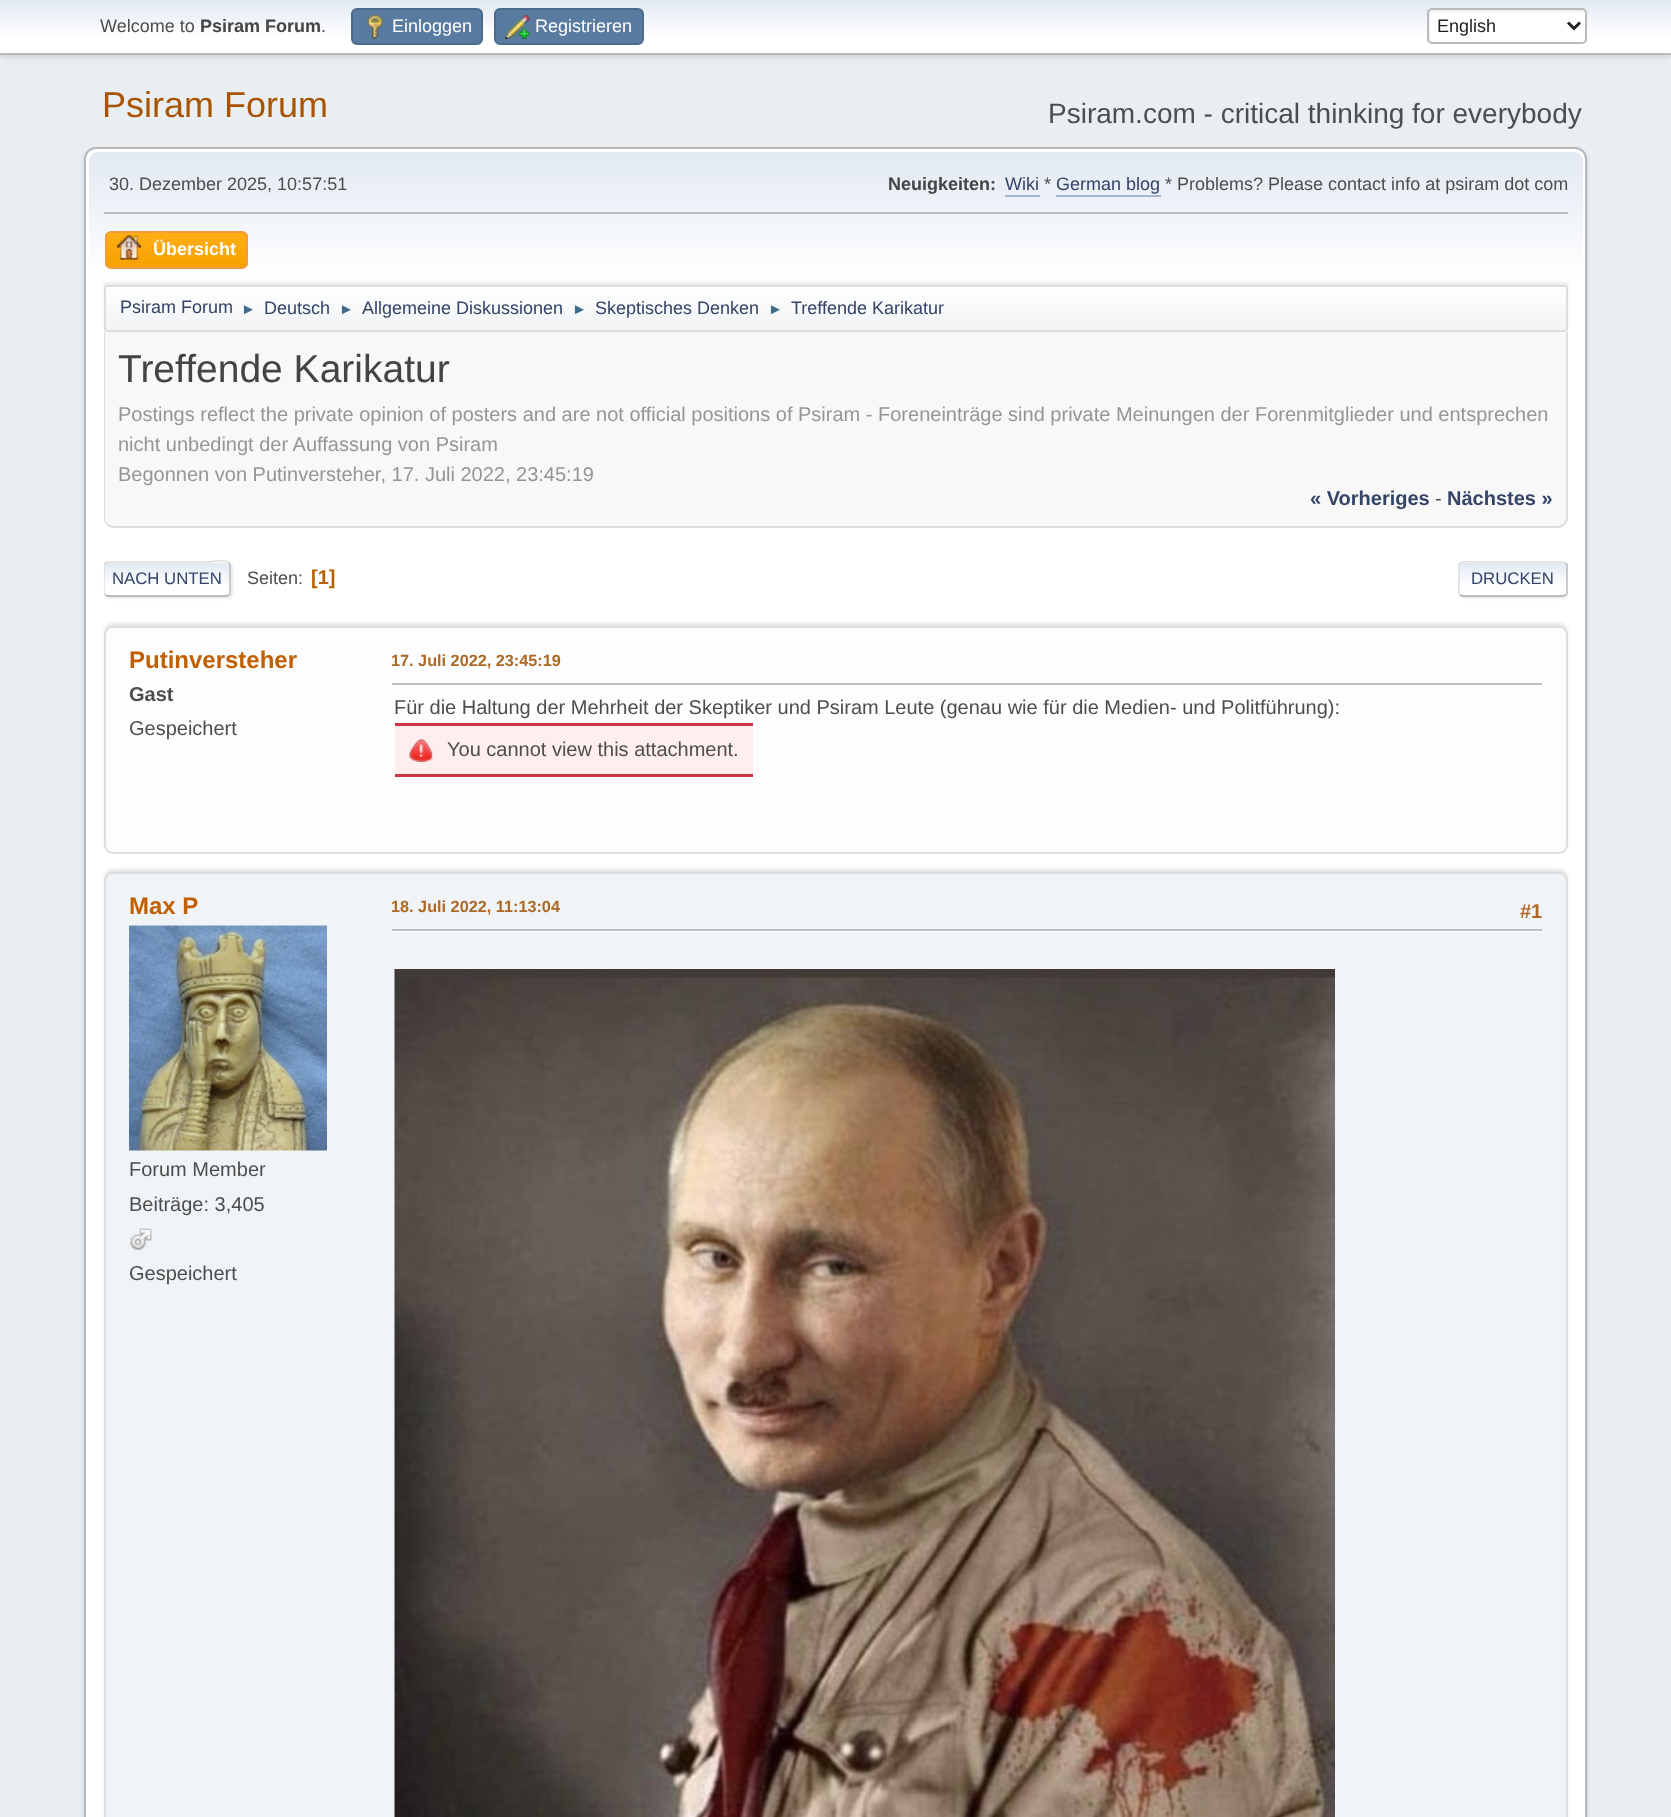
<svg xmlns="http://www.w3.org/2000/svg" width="1671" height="1817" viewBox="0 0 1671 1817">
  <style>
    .t1 { font: 18px Liberation Sans; fill: #4d4d4d; }
    .t2 { font: bold 18px Liberation Sans; fill: #444; }
    .t3 { font: 18px Liberation Sans; fill: #fff; }
    .t4 { font: 18px Liberation Sans; fill: #222; }
    .t5 { font: 36px Liberation Sans; fill: #a85400; }
    .t6 { font: 28px Liberation Sans; fill: #4d4d4d; }
    .t7 { font: 18px Liberation Sans; fill: #346; }
    .t8 { font: bold 18px Liberation Sans; fill: #fff; }
    .t9 { font: 15px Liberation Sans; fill: #3f6b8c; }
    .t10 { font: 39px Liberation Sans; fill: #444; }
    .t11 { font: 20px Liberation Sans; fill: #959595; }
    .t12 { font: bold 20px Liberation Sans; fill: #346; }
    .t13 { font: 20px Liberation Sans; fill: #4d4d4d; }
    .t14 { font: 16.75px Liberation Sans; fill: #346; }
    .t15 { font: bold 20px Liberation Sans; fill: #b46100; }
    .t16 { font: bold 24px Liberation Sans; fill: #c06002; }
    .t17 { font: bold 20px Liberation Sans; fill: #4d4d4d; }
    .t18 { font: bold 16.25px Liberation Sans; fill: #ad6825; }
    .t19 { font: bold 20px Liberation Sans; fill: #ad6825; }
  </style>
  <defs>
    <linearGradient id="g1" gradientUnits="userSpaceOnUse" x1="836" y1="0" x2="836" y2="53"><stop offset="0" stop-color="#e2e9f3"/><stop offset="0.7" stop-color="#fff"/></linearGradient>
    <linearGradient id="g2" gradientUnits="userSpaceOnUse" x1="836" y1="151" x2="836" y2="335"><stop offset="0" stop-color="#e2e9f3"/><stop offset="0.7" stop-color="#fff"/></linearGradient>
    <clipPath id="clip1"><rect x="105" y="231" width="143" height="38" rx="6"/></clipPath>
    <linearGradient id="g3" gradientUnits="userSpaceOnUse" x1="176" y1="233" x2="176" y2="267"><stop offset="0" stop-color="#ffae14"/><stop offset="1" stop-color="#f5a100"/></linearGradient>
    <clipPath id="clip2"><rect x="104" y="285" width="1464" height="47" rx="3"/></clipPath>
    <linearGradient id="g4" gradientUnits="userSpaceOnUse" x1="836" y1="286" x2="836" y2="330"><stop offset="0" stop-color="#fff"/><stop offset="0.95" stop-color="#f1f3f5"/></linearGradient>
    <clipPath id="clip3"><rect x="104" y="561" width="127" height="36" rx="5"/></clipPath>
    <linearGradient id="g5" gradientUnits="userSpaceOnUse" x1="167" y1="563" x2="167" y2="596"><stop offset="0" stop-color="#e2e9f3"/><stop offset="0.7" stop-color="#fff"/></linearGradient>
    <linearGradient id="g6" gradientUnits="userSpaceOnUse" x1="167" y1="596" x2="167" y2="629"><stop offset="0" stop-color="#e2e9f3"/><stop offset="0.7" stop-color="#fff"/></linearGradient>
    <clipPath id="clip4"><rect x="104" y="551" width="1464" height="57"/></clipPath>
    <clipPath id="clip5"><rect x="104" y="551" width="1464" height="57"/></clipPath>
    <clipPath id="clip6"><rect x="1458" y="561" width="110" height="36" rx="5"/></clipPath>
    <linearGradient id="g7" gradientUnits="userSpaceOnUse" x1="1513" y1="563" x2="1513" y2="596"><stop offset="0" stop-color="#e2e9f3"/><stop offset="0.7" stop-color="#fff"/></linearGradient>
    <linearGradient id="g8" gradientUnits="userSpaceOnUse" x1="1513" y1="596" x2="1513" y2="629"><stop offset="0" stop-color="#e2e9f3"/><stop offset="0.7" stop-color="#fff"/></linearGradient>
  </defs>
  <rect width="100%" height="100%" fill="#e9eef2"/>
  <rect x="0" y="2" width="1671" height="54" fill="#00000029" filter="blur(3px)"/>
  <rect x="0" y="0" width="1671" height="53" fill="url(#g1)"/>
  <rect x="0" y="53" width="1671" height="2" fill="#bbb"/>
  <text x="100" y="32" class="t1">Welcome to</text>
  <text x="200" y="32" class="t2">Psiram Forum</text>
  <text x="321" y="32" class="t1">.</text>
  <rect x="352" y="9" width="130" height="35" rx="5" fill="#597b9f" stroke="#4a6b8c" stroke-width="2"/>
  <image x="367" y="15" width="16" height="24" href="images/1.png"/>
  <text x="392" y="32" class="t3">Einloggen</text>
  <rect x="495" y="9" width="148" height="35" rx="5" fill="#597b9f" stroke="#4a6b8c" stroke-width="2"/>
  <image x="505" y="15" width="25" height="24" href="images/2.png"/>
  <text x="535" y="32" class="t3">Registrieren</text>
  <rect x="1427" y="8" width="160" height="36" rx="5" fill="#fff"/>
  <path d="M1432 12H1584L1586 13V12C1586 10 1585 9 1583 9H1431C1429 9 1428 10 1428 12V39C1428 40 1429 41 1430 42V15C1430 13 1431 12 1432 12Z" fill="#ecf1f8"/>
  <rect x="1428" y="9" width="158" height="34" rx="4" fill="none" stroke="#bbb" stroke-width="2"/>
  <path d="M1568 22.5L1574 28.5L1580 22.5" fill="none" stroke="#222" stroke-width="3"/>
  <text x="1437" y="32" class="t4">English</text>
  <text x="102" y="117" class="t5">Psiram Forum</text>
  <text x="1048" y="123" class="t6">Psiram.com - critical thinking for everybody</text>
  <rect x="84" y="150" width="1503" height="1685" rx="12" fill="#00000024" filter="blur(2px)"/>
  <rect x="85" y="148" width="1501" height="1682" rx="11" fill="#fff" stroke="#b8b8b8" stroke-width="2"/>
  <path d="M98 152H1574C1579 152 1583 156 1583 161V335H89V161C89 156 93 152 98 152Z" fill="url(#g2)"/>
  <rect x="104" y="212" width="1464" height="2" fill="#bbb"/>
  <text x="109" y="190" class="t1">30. Dezember 2025, 10:57:51</text>
  <text x="888" y="190" class="t2">Neuigkeiten:</text>
  <text x="1005" y="190" class="t7">Wiki</text>
  <rect x="1005" y="195" width="35" height="2" fill="#a8b6cf"/>
  <text x="1044" y="190" class="t1">*</text>
  <text x="1056" y="190" class="t7">German blog</text>
  <rect x="1056" y="195" width="105" height="2" fill="#a8b6cf"/>
  <text x="1165" y="190" class="t1">* Problems? Please contact info at psiram dot com</text>
  <g clip-path="url(#clip1)">
    <rect x="105" y="233" width="143" height="34" fill="url(#g3)"/>
  </g>
  <rect x="106" y="232" width="141" height="36" rx="5" fill="none" stroke="#f49a3a" stroke-width="2"/>
  <image x="117" y="235" width="24" height="25" href="images/3.png"/>
  <text x="153" y="255" class="t8">Übersicht</text>
  <rect x="104" y="282" width="1464" height="47" rx="3" fill="#00000014" filter="blur(1.5px)"/>
  <g clip-path="url(#clip2)">
    <rect x="104" y="287" width="1464" height="43" fill="url(#g4)"/>
  </g>
  <rect x="105" y="286" width="1462" height="45" rx="2" fill="none" stroke="#ddd" stroke-width="2"/>
  <text x="120" y="313" class="t7">Psiram Forum</text>
  <text x="241" y="314" class="t9">►</text>
  <text x="264" y="314" class="t7">Deutsch</text>
  <text x="339" y="314" class="t9">►</text>
  <text x="362" y="314" class="t7">Allgemeine Diskussionen</text>
  <text x="572" y="314" class="t9">►</text>
  <text x="595" y="314" class="t7">Skeptisches Denken</text>
  <text x="768" y="314" class="t9">►</text>
  <text x="791" y="314" class="t7">Treffende Karikatur</text>
  <path d="M104 332H1568V517C1568 523 1563 528 1557 528H115C109 528 104 523 104 517Z" fill="#f8f8f8"/>
  <path d="M104 332H1568V518C1568 523 1563 528 1557 528H114C108 528 104 523 104 518ZM105 332H1566V518C1566 522 1562 526 1557 526H114C109 526 105 522 105 518Z" fill="#ddd" fill-rule="evenodd"/>
  <text x="118" y="382" class="t10">Treffende Karikatur</text>
  <text x="118" y="421" class="t11">Postings reflect the private opinion of posters and are not official positions of Psiram - Foreneinträge sind private Meinungen der Forenmitglieder und entsprechen</text>
  <text x="118" y="451" class="t11">nicht unbedingt der Auffassung von Psiram</text>
  <text x="118" y="481" class="t11">Begonnen von Putinversteher, 17. Juli 2022, 23:45:19</text>
  <text x="1310" y="505" class="t12">« Vorheriges</text>
  <text x="1435" y="505" class="t13">-</text>
  <text x="1447" y="505" class="t12">Nächstes »</text>
  <rect x="105" y="563" width="128" height="36" rx="5" fill="#dddddd91" filter="blur(1px)"/>
  <rect x="104" y="561" width="127" height="36" rx="5" fill="#fff"/>
  <g clip-path="url(#clip3)">
    <rect x="104" y="563" width="127" height="33" fill="url(#g5)"/>
    <rect x="104" y="596" width="127" height="1" fill="url(#g6)"/>
  </g>
  <path d="M229 563C230 563.5 230 564.5 230 565.5V592.5C230 593.5 230 594.5 229 595" fill="none" stroke="#bbb" stroke-width="1.5"/>
  <path d="M229 595L226.5 596H107.5L105.5 595" fill="none" stroke="#aaa" stroke-width="1.5"/>
  <g clip-path="url(#clip4)">
    <path d="M105.5 595C103 593 104 582 104 579V570C104 567 103.5 562 108 562H207C214 562 222 559 228.5 562L229 563" fill="none" stroke="#ddd" stroke-width="1.5"/>
  </g>
  <text x="112" y="584" class="t14">NACH UNTEN</text>
  <text x="247" y="584" class="t1">Seiten:</text>
  <text x="311" y="584" class="t15">[1]</text>
  <g clip-path="url(#clip5)">
    <rect x="1460" y="563" width="109" height="36" rx="5" fill="#dddddd91" filter="blur(1px)"/>
  </g>
  <rect x="1458" y="561" width="110" height="36" rx="5" fill="#fff"/>
  <g clip-path="url(#clip6)">
    <rect x="1458" y="563" width="110" height="33" fill="url(#g7)"/>
    <rect x="1458" y="596" width="110" height="1" fill="url(#g8)"/>
  </g>
  <path d="M1565.5 563C1566.5 563.5 1567 564.5 1567 565.5V592.5C1567 593.5 1566.5 594.5 1565.5 595" fill="none" stroke="#bbb" stroke-width="1.5"/>
  <path d="M1565.5 595L1563.5 596H1479H1462.5L1460 595" fill="none" stroke="#aaa" stroke-width="1.5"/>
  <path d="M1460 595C1457.5 593 1459 582 1459 579C1459 558 1456 562 1479 562H1563L1565.5 563" fill="none" stroke="#ddd" stroke-width="1.5"/>
  <text x="1471" y="584" class="t14">DRUCKEN</text>
  <rect x="104" y="623" width="1464" height="228" rx="9" fill="#0000001a" filter="blur(1.5px)"/>
  <rect x="105" y="627" width="1462" height="226" rx="8" fill="#fdfdfd" stroke="#ddd" stroke-width="2"/>
  <text x="129" y="668" class="t16">Putinversteher</text>
  <text x="129" y="701" class="t17">Gast</text>
  <text x="129" y="735" class="t13">Gespeichert</text>
  <text x="391" y="666" class="t18">17. Juli 2022, 23:45:19</text>
  <rect x="392" y="683" width="1150" height="2" fill="#bfbfbf"/>
  <text x="394" y="714" class="t13">Für die Haltung der Mehrheit der Skeptiker und Psiram Leute (genau wie für die Medien- und Politführung):</text>
  <rect x="395" y="726" width="358" height="48" fill="#fee"/>
  <rect x="395" y="723" width="358" height="3" fill="#c34"/>
  <rect x="395" y="774" width="358" height="3" fill="#c34"/>
  <image x="409" y="739" width="24" height="23" href="images/4.png"/>
  <text x="447" y="756" class="t13">You cannot view this attachment.</text>
  <rect x="104" y="869" width="1464" height="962" rx="9" fill="#0000001a" filter="blur(1.5px)"/>
  <rect x="105" y="873" width="1462" height="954" rx="8" fill="#f0f4f7" stroke="#ddd" stroke-width="2"/>
  <text x="129" y="914" class="t16">Max P</text>
  <image x="129" y="925" width="198" height="226" href="images/5.png"/>
  <text x="129" y="1176" class="t13">Forum Member</text>
  <text x="129" y="1211" class="t13">Beiträge: 3,405</text>
  <image x="130" y="1228" width="22" height="22" href="images/6.png"/>
  <text x="129" y="1280" class="t13">Gespeichert</text>
  <text x="391" y="912" class="t18">18. Juli 2022, 11:13:04</text>
  <text x="1520" y="918" class="t19">#1</text>
  <rect x="392" y="931" width="1150" height="1" fill="#fff"/>
  <rect x="392" y="929" width="1150" height="2" fill="#bfbfbf"/>
  <image x="394" y="969" width="941" height="848" href="images/7.png"/>
</svg>
